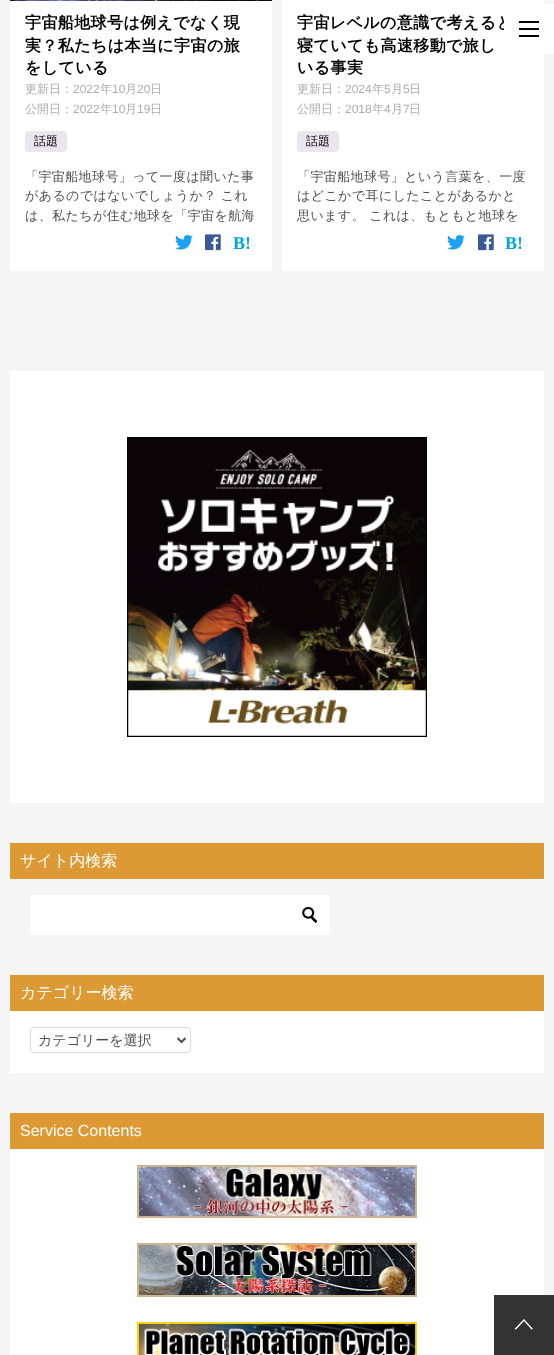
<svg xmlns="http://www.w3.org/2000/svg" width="554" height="1355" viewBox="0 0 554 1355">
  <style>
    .t1 { font: bold 16px WenQuanYi Zen Hei; letter-spacing: 0.4px; fill: #000; }
    .t2 { font: 500 12px WenQuanYi Zen Hei; fill: #adadad; }
    .t3 { font: 12px Liberation Sans; fill: #adadad; }
    .t4 { font: 500 12px WenQuanYi Zen Hei; fill: #000; }
    .t5 { font: 500 13px WenQuanYi Zen Hei; letter-spacing: 0.4px; fill: #505050; }
    .t6 { font: bold 18px Liberation Serif; fill: #00a4de; }
    .t7 { font: 500 16px WenQuanYi Zen Hei; fill: #fff; }
    .t8 { font: 500 14px WenQuanYi Zen Hei; fill: #505050; }
    .t9 { font: 16px Liberation Sans; fill: #fff; }
  </style>
  <rect width="100%" height="100%" fill="#f5f5f5"/>
  <rect x="10" y="1" width="262" height="270" fill="#fff"/>
  <image x="10" y="0" width="262" height="1" href="images/1.png"/>
  <text x="25" y="28" class="t1">宇宙船地球号は例えでなく現</text>
  <text x="25" y="51" class="t1">実？私たちは本当に宇宙の旅</text>
  <text x="25" y="73" class="t1">をしている</text>
  <text x="25" y="93" class="t2">更新日：</text>
  <text x="73" y="93" class="t3">2022</text>
  <text x="100" y="93" class="t2">年</text>
  <text x="112" y="93" class="t3">10</text>
  <text x="125" y="93" class="t2">月</text>
  <text x="137" y="93" class="t3">20</text>
  <text x="150" y="93" class="t2">日</text>
  <text x="25" y="113" class="t2">公開日：</text>
  <text x="73" y="113" class="t3">2022</text>
  <text x="100" y="113" class="t2">年</text>
  <text x="112" y="113" class="t3">10</text>
  <text x="125" y="113" class="t2">月</text>
  <text x="137" y="113" class="t3">19</text>
  <text x="150" y="113" class="t2">日</text>
  <rect x="25" y="131" width="42" height="21" rx="4" fill="#eae6ed"/>
  <text x="34" y="145" class="t4">話題</text>
  <text x="25" y="181" class="t5">「宇宙船地球号」って一度は聞いた事</text>
  <text x="25" y="200" class="t5">があるのではないでしょうか？ これ</text>
  <text x="25" y="220" class="t5">は、私たちが住む地球を「宇宙を航海</text>
  <image x="175" y="234" width="18" height="16" href="images/2.png"/>
  <image x="205" y="234" width="16" height="17" href="images/3.png"/>
  <text x="233" y="249" class="t6">B!</text>
  <rect x="282" y="0" width="262" height="271" fill="#fff"/>
  <text x="297" y="28" class="t1">宇宙レベルの意識で考えると</text>
  <text x="297" y="51" class="t1">寝ていても高速移動で旅し</text>
  <text x="297" y="73" class="t1">いる事実</text>
  <text x="297" y="93" class="t2">更新日：</text>
  <text x="345" y="93" class="t3">2024</text>
  <text x="372" y="93" class="t2">年</text>
  <text x="384" y="93" class="t3">5</text>
  <text x="391" y="93" class="t2">月</text>
  <text x="403" y="93" class="t3">5</text>
  <text x="409" y="93" class="t2">日</text>
  <text x="297" y="113" class="t2">公開日：</text>
  <text x="345" y="113" class="t3">2018</text>
  <text x="372" y="113" class="t2">年</text>
  <text x="384" y="113" class="t3">4</text>
  <text x="391" y="113" class="t2">月</text>
  <text x="403" y="113" class="t3">7</text>
  <text x="409" y="113" class="t2">日</text>
  <rect x="297" y="131" width="42" height="21" rx="4" fill="#eae6ed"/>
  <text x="306" y="145" class="t4">話題</text>
  <text x="297" y="181" class="t5">「宇宙船地球号」という言葉を、一度</text>
  <text x="297" y="200" class="t5">はどこかで耳にしたことがあるかと</text>
  <text x="297" y="220" class="t5">思います。 これは、もともと地球を</text>
  <image x="447" y="234" width="18" height="16" href="images/2.png"/>
  <image x="478" y="234" width="16" height="17" href="images/3.png"/>
  <text x="505" y="249" class="t6">B!</text>
  <rect x="10" y="371" width="534" height="432" fill="#fff"/>
  <image x="127" y="437" width="300" height="300" href="images/4.png"/>
  <rect x="10" y="843" width="534" height="36" fill="#d93"/>
  <text x="20" y="866" class="t7">サイト内検索</text>
  <rect x="30" y="895" width="300" height="40" rx="4" fill="#fff"/>
  <image x="302" y="907" width="16" height="16" href="images/5.png"/>
  <rect x="10" y="1011" width="534" height="62" fill="#fff"/>
  <rect x="10" y="975" width="534" height="36" fill="#d93"/>
  <text x="20" y="998" class="t7">カテゴリー検索</text>
  <rect x="30.5" y="1027.5" width="160" height="25" rx="3.5" fill="none" stroke="#ddd"/>
  <path d="M177.5 1038L181.5 1042L185.5 1038" fill="none" stroke="#505050" stroke-width="2"/>
  <text x="38" y="1045" class="t8">カテゴリーを選択</text>
  <rect x="10" y="1149" width="534" height="206" fill="#fff"/>
  <rect x="10" y="1113" width="534" height="36" fill="#d93"/>
  <text x="20" y="1136" class="t9">Service Contents</text>
  <image x="137" y="1165" width="280" height="53" href="images/6.png"/>
  <image x="137" y="1243" width="280" height="54" href="images/7.png"/>
  <image x="137" y="1322" width="280" height="33" href="images/8.png"/>
  <rect x="504" y="4" width="50" height="50" fill="#fff"/>
  <rect x="519" y="28" width="20" height="2" fill="#000"/>
  <rect x="519" y="21" width="20" height="2" fill="#000"/>
  <rect x="519" y="35" width="20" height="2" fill="#000"/>
  <rect x="494" y="1295" width="60" height="60" fill="#333"/>
  <path d="M524 1319L533 1329L531.5 1329.5L524 1321L516 1329.5L514.5 1329Z" fill="#fff"/>
</svg>
